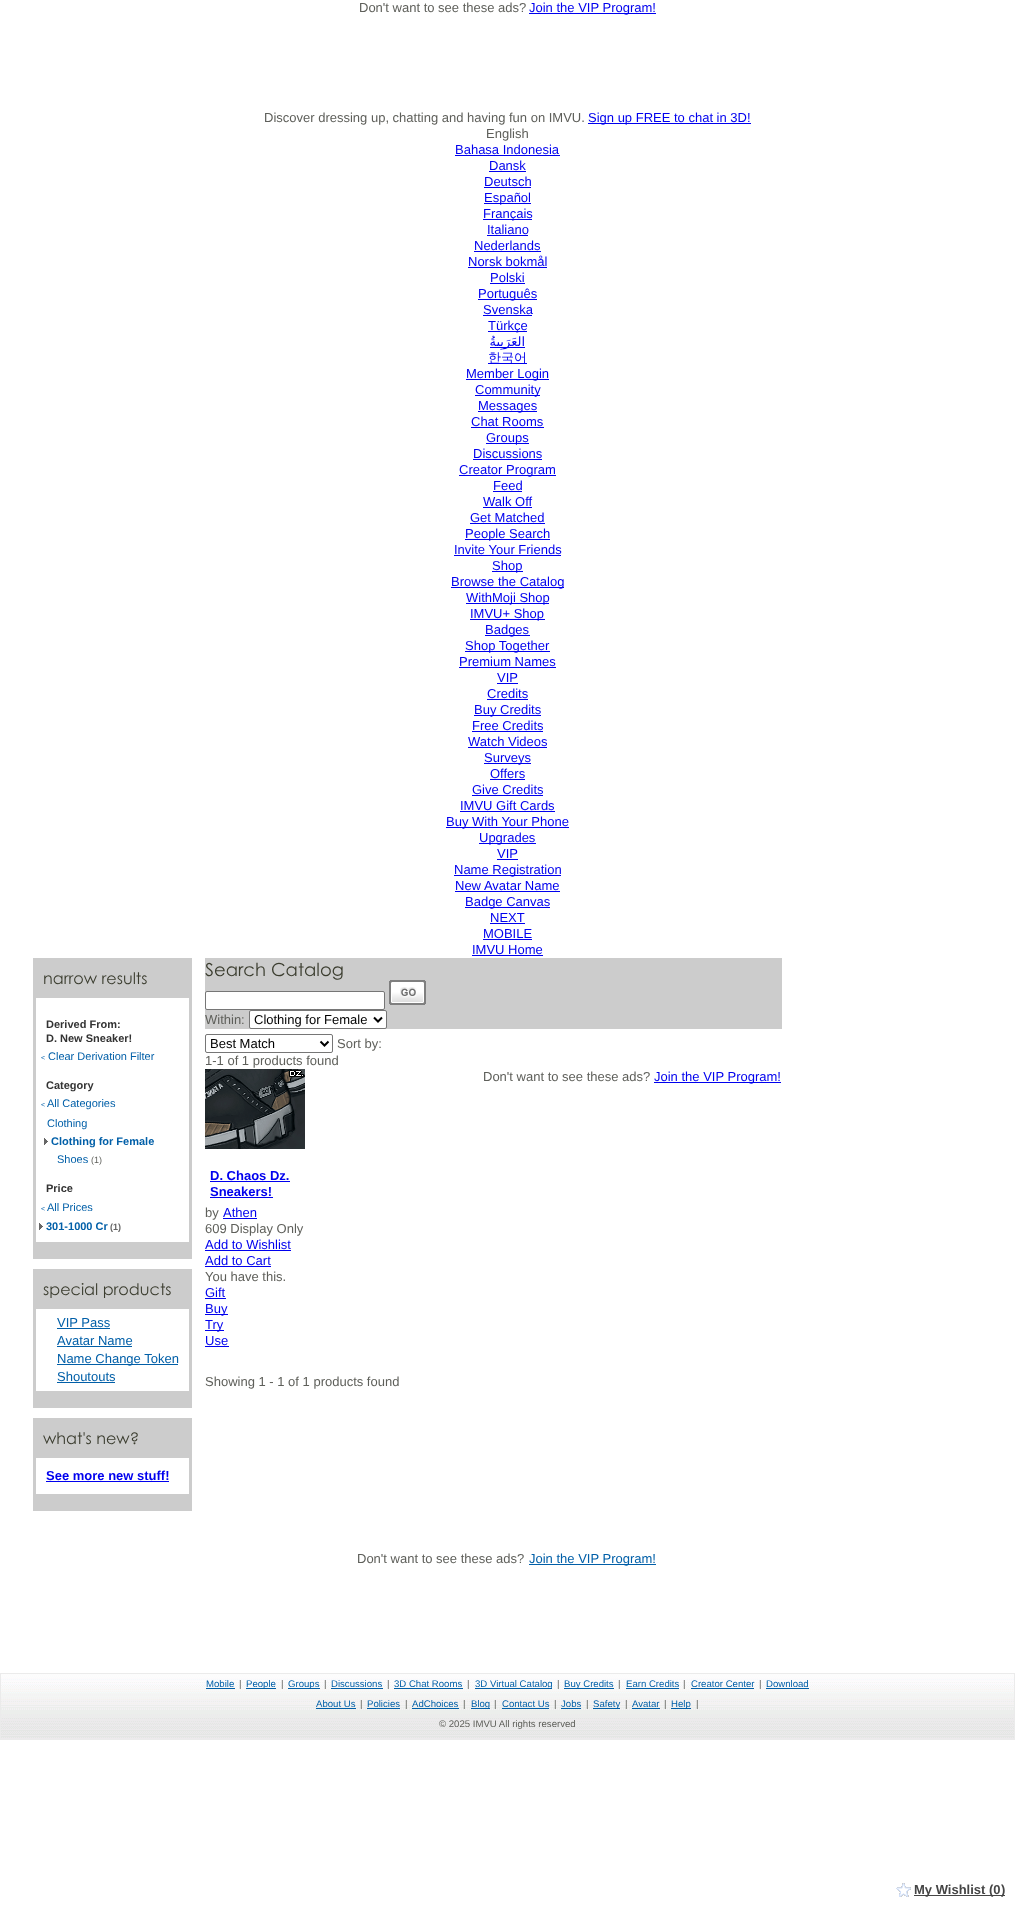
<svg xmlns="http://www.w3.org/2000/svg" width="1015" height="1916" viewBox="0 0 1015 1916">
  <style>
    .t1 { font: 13px Liberation Sans; fill: #5e5f5a; }
    .t2 { font: 13px Liberation Sans; fill: #00e; }
    .t3 { font: 13px DejaVu Sans; direction: rtl; fill: #00e; }
    .t4 { font: 500 13px WenQuanYi Zen Hei; fill: #00e; }
    .t5 { font: 16px Century Gothic; fill: #3b3d2f; }
    .t6 { font: bold 11px Liberation Sans; fill: #333; }
    .t7 { font: 7px Liberation Sans; fill: #015fa8; }
    .t8 { font: 11px Liberation Sans; fill: #015fa8; }
    .t9 { font: bold 11px Liberation Sans; fill: #015fa8; }
    .t10 { font: 9px Liberation Sans; fill: #5e5f5a; }
    .t11 { font: bold 9px Liberation Sans; fill: #666; }
    .t12 { font: 13px Liberation Sans; fill: #015fa8; }
    .t13 { font: bold 13px Liberation Sans; fill: #00e; }
    .t14 { font: 18px Century Gothic; fill: #3b3d2f; }
    .t15 { font: 13px Liberation Sans; fill: #000; }
    .t16 { font: bold 13px Liberation Sans; fill: #454545; }
    .t17 { font: 9.6px Liberation Sans; fill: #015fa8; }
    .t18 { font: 9.6px Liberation Sans; fill: #5e5f5a; }
  </style>
  <rect width="100%" height="100%" fill="#fff"/>
  <text x="359" y="12" class="t1">Don't want to see these ads?</text>
  <rect x="529" y="13" width="127" height="1" fill="#00e"/>
  <text x="529" y="12" class="t2">Join the VIP Program!</text>
  <text x="264" y="122" class="t1">Discover dressing up, chatting and having fun on IMVU.</text>
  <rect x="588" y="123" width="163" height="1" fill="#00e"/>
  <text x="588" y="122" class="t2">Sign up FREE to chat in 3D!</text>
  <text x="486" y="138" class="t1">English</text>
  <text x="455" y="154" class="t2">Bahasa Indonesia</text>
  <rect x="455" y="155" width="105" height="1" fill="#00e"/>
  <text x="489" y="170" class="t2">Dansk</text>
  <rect x="489" y="171" width="37" height="1" fill="#00e"/>
  <text x="484" y="186" class="t2">Deutsch</text>
  <rect x="484" y="187" width="47" height="1" fill="#00e"/>
  <rect x="484" y="203" width="47" height="1" fill="#00e"/>
  <text x="484" y="202" class="t2">Español</text>
  <rect x="483" y="219" width="49" height="1" fill="#00e"/>
  <text x="483" y="218" class="t2">Français</text>
  <text x="487" y="234" class="t2">Italiano</text>
  <rect x="487" y="235" width="41" height="1" fill="#00e"/>
  <text x="474" y="250" class="t2">Nederlands</text>
  <rect x="474" y="251" width="67" height="1" fill="#00e"/>
  <text x="468" y="266" class="t2">Norsk bokmål</text>
  <rect x="468" y="267" width="79" height="1" fill="#00e"/>
  <text x="490" y="282" class="t2">Polski</text>
  <rect x="490" y="283" width="35" height="1" fill="#00e"/>
  <rect x="478" y="299" width="59" height="1" fill="#00e"/>
  <text x="478" y="298" class="t2">Português</text>
  <text x="483" y="314" class="t2">Svenska</text>
  <rect x="483" y="315" width="49" height="1" fill="#00e"/>
  <rect x="488" y="331" width="39" height="1" fill="#00e"/>
  <text x="488" y="330" class="t2">Türkçe</text>
  <rect x="490" y="347" width="35" height="1" fill="#00e"/>
  <text x="525" y="346" class="t3">العَرَبِيةُ</text>
  <rect x="488" y="363" width="39" height="1" fill="#00e"/>
  <text x="488" y="362" class="t4">한국어</text>
  <rect x="466" y="379" width="83" height="1" fill="#00e"/>
  <text x="466" y="378" class="t2">Member Login</text>
  <rect x="475" y="395" width="65" height="1" fill="#00e"/>
  <text x="475" y="394" class="t2">Community</text>
  <rect x="478" y="411" width="59" height="1" fill="#00e"/>
  <text x="478" y="410" class="t2">Messages</text>
  <text x="471" y="426" class="t2">Chat Rooms</text>
  <rect x="471" y="427" width="73" height="1" fill="#00e"/>
  <rect x="486" y="443" width="43" height="1" fill="#00e"/>
  <text x="486" y="442" class="t2">Groups</text>
  <text x="473" y="458" class="t2">Discussions</text>
  <rect x="473" y="459" width="69" height="1" fill="#00e"/>
  <rect x="459" y="475" width="97" height="1" fill="#00e"/>
  <text x="459" y="474" class="t2">Creator Program</text>
  <text x="493" y="490" class="t2">Feed</text>
  <rect x="493" y="491" width="29" height="1" fill="#00e"/>
  <text x="483" y="506" class="t2">Walk Off</text>
  <rect x="483" y="507" width="49" height="1" fill="#00e"/>
  <text x="470" y="522" class="t2">Get Matched</text>
  <rect x="470" y="523" width="75" height="1" fill="#00e"/>
  <rect x="465" y="539" width="85" height="1" fill="#00e"/>
  <text x="465" y="538" class="t2">People Search</text>
  <text x="454" y="554" class="t2">Invite Your Friends</text>
  <rect x="454" y="555" width="107" height="1" fill="#00e"/>
  <rect x="492" y="571" width="31" height="1" fill="#00e"/>
  <text x="492" y="570" class="t2">Shop</text>
  <rect x="451" y="587" width="113" height="1" fill="#00e"/>
  <text x="451" y="586" class="t2">Browse the Catalog</text>
  <rect x="466" y="603" width="83" height="1" fill="#00e"/>
  <text x="466" y="602" class="t2">WithMoji Shop</text>
  <rect x="470" y="619" width="75" height="1" fill="#00e"/>
  <text x="470" y="618" class="t2">IMVU+ Shop</text>
  <rect x="485" y="635" width="45" height="1" fill="#00e"/>
  <text x="485" y="634" class="t2">Badges</text>
  <rect x="465" y="651" width="85" height="1" fill="#00e"/>
  <text x="465" y="650" class="t2">Shop Together</text>
  <text x="459" y="666" class="t2">Premium Names</text>
  <rect x="459" y="667" width="97" height="1" fill="#00e"/>
  <text x="497" y="682" class="t2">VIP</text>
  <rect x="497" y="683" width="21" height="1" fill="#00e"/>
  <text x="487" y="698" class="t2">Credits</text>
  <rect x="487" y="699" width="41" height="1" fill="#00e"/>
  <rect x="474" y="715" width="67" height="1" fill="#00e"/>
  <text x="474" y="714" class="t2">Buy Credits</text>
  <text x="472" y="730" class="t2">Free Credits</text>
  <rect x="472" y="731" width="71" height="1" fill="#00e"/>
  <text x="468" y="746" class="t2">Watch Videos</text>
  <rect x="468" y="747" width="79" height="1" fill="#00e"/>
  <rect x="484" y="763" width="47" height="1" fill="#00e"/>
  <text x="484" y="762" class="t2">Surveys</text>
  <text x="490" y="778" class="t2">Offers</text>
  <rect x="490" y="779" width="35" height="1" fill="#00e"/>
  <text x="472" y="794" class="t2">Give Credits</text>
  <rect x="472" y="795" width="71" height="1" fill="#00e"/>
  <text x="460" y="810" class="t2">IMVU Gift Cards</text>
  <rect x="460" y="811" width="95" height="1" fill="#00e"/>
  <rect x="446" y="827" width="123" height="1" fill="#00e"/>
  <text x="446" y="826" class="t2">Buy With Your Phone</text>
  <rect x="479" y="843" width="57" height="1" fill="#00e"/>
  <text x="479" y="842" class="t2">Upgrades</text>
  <text x="497" y="858" class="t2">VIP</text>
  <rect x="497" y="859" width="21" height="1" fill="#00e"/>
  <rect x="454" y="875" width="107" height="1" fill="#00e"/>
  <text x="454" y="874" class="t2">Name Registration</text>
  <text x="455" y="890" class="t2">New Avatar Name</text>
  <rect x="455" y="891" width="105" height="1" fill="#00e"/>
  <rect x="465" y="907" width="85" height="1" fill="#00e"/>
  <text x="465" y="906" class="t2">Badge Canvas</text>
  <text x="490" y="922" class="t2">NEXT</text>
  <rect x="490" y="923" width="35" height="1" fill="#00e"/>
  <text x="483" y="938" class="t2">MOBILE</text>
  <rect x="483" y="939" width="49" height="1" fill="#00e"/>
  <text x="472" y="954" class="t2">IMVU Home</text>
  <rect x="472" y="955" width="71" height="1" fill="#00e"/>
  <rect x="33" y="958" width="159" height="301" fill="#ccc"/>
  <text x="43" y="984" class="t5">narrow results</text>
  <rect x="36" y="998" width="153" height="244" fill="#fff"/>
  <text x="46" y="1028" class="t6">Derived From:</text>
  <text x="46" y="1042" class="t6">D. New Sneaker!</text>
  <text x="41" y="1060" class="t7">&lt;</text>
  <text x="48" y="1060" class="t8">Clear Derivation Filter</text>
  <text x="46" y="1089" class="t6">Category</text>
  <text x="41" y="1107" class="t7">&lt;</text>
  <text x="47" y="1107" class="t8">All Categories</text>
  <text x="47" y="1127" class="t8">Clothing</text>
  <image x="44" y="1138" width="4" height="7" href="images/1.png"/>
  <text x="51" y="1145" class="t9">Clothing for Female</text>
  <text x="57" y="1163" class="t8">Shoes</text>
  <text x="91" y="1163" class="t10">(1)</text>
  <text x="46" y="1192" class="t6">Price</text>
  <text x="41" y="1211" class="t7">&lt;</text>
  <text x="47" y="1211" class="t8">All Prices</text>
  <image x="39" y="1223" width="4" height="7" href="images/1.png"/>
  <text x="46" y="1230" class="t9">301-1000 Cr</text>
  <text x="110" y="1230" class="t11">(1)</text>
  <rect x="33" y="1269" width="159" height="139" fill="#ccc"/>
  <text x="43" y="1295" class="t5">special products</text>
  <rect x="36" y="1309" width="153" height="82" fill="#fff"/>
  <text x="57" y="1327" class="t12">VIP Pass</text>
  <rect x="57" y="1328" width="53" height="1" fill="#015fa8"/>
  <text x="57" y="1345" class="t12">Avatar Name</text>
  <rect x="57" y="1346" width="75" height="1" fill="#015fa8"/>
  <rect x="57" y="1364" width="121" height="1" fill="#015fa8"/>
  <text x="57" y="1363" class="t12">Name Change Token</text>
  <text x="57" y="1381" class="t12">Shoutouts</text>
  <rect x="57" y="1382" width="58" height="1" fill="#015fa8"/>
  <rect x="33" y="1418" width="159" height="93" fill="#ccc"/>
  <text x="43" y="1444" class="t5">what's new?</text>
  <rect x="36" y="1458" width="153" height="36" fill="#fff"/>
  <text x="46" y="1480" class="t13">See more new stuff!</text>
  <rect x="46" y="1481" width="123" height="1" fill="#00e"/>
  <rect x="205" y="958" width="577" height="71" fill="#ccc"/>
  <text x="205" y="976" class="t14">Search Catalog</text>
  <rect x="205.5" y="991.5" width="179" height="18" rx="1.5" fill="#fff" stroke="#767676"/>
  <image x="389" y="980" width="37" height="25" href="images/2.png"/>
  <text x="205" y="1024" class="t1">Within:</text>
  <rect x="249.5" y="1010.5" width="137" height="18" rx="1.5" fill="#fff" stroke="#767676"/>
  <path d="M374 1017.5L378 1021.5L382 1017.5" fill="none" stroke="#000" stroke-width="2"/>
  <text x="254" y="1024" class="t15">Clothing for Female</text>
  <image x="896" y="1883" width="15" height="14" href="images/3.png"/>
  <rect x="914" y="1895" width="79" height="1" fill="#454545"/>
  <text x="914" y="1894" class="t16">My Wishlist (0</text>
  <rect x="993" y="1895" width="12" height="1" fill="#454545"/>
  <text x="1001" y="1894" class="t16">)</text>
  <rect x="205.5" y="1034.5" width="127" height="18" rx="1.5" fill="none" stroke="#767676"/>
  <path d="M320.5 1041.5L324.5 1045.5L328.5 1041.5" fill="none" stroke="#000" stroke-width="2"/>
  <text x="210" y="1048" class="t15">Best Match</text>
  <text x="337" y="1048" class="t1">Sort by:</text>
  <text x="205" y="1065" class="t1">1-1 of 1 products found</text>
  <text x="483" y="1081" class="t1">Don't want to see these ads?</text>
  <rect x="654" y="1082" width="127" height="1" fill="#00e"/>
  <text x="654" y="1081" class="t2">Join the VIP Program!</text>
  <image x="205" y="1069" width="100" height="80" href="images/4.png"/>
  <text x="210" y="1180" class="t13">D. Chaos Dz.</text>
  <rect x="210" y="1181" width="80" height="1" fill="#00e"/>
  <text x="210" y="1196" class="t13">Sneakers!</text>
  <rect x="210" y="1197" width="63" height="1" fill="#00e"/>
  <text x="205" y="1217" class="t1">by</text>
  <text x="223" y="1217" class="t2">Athen</text>
  <rect x="223" y="1218" width="34" height="1" fill="#00e"/>
  <text x="205" y="1233" class="t1">609 Display Only</text>
  <text x="205" y="1249" class="t2">Add to Wishlist</text>
  <rect x="205" y="1250" width="86" height="1" fill="#00e"/>
  <text x="205" y="1265" class="t2">Add to Cart</text>
  <rect x="205" y="1266" width="66" height="1" fill="#00e"/>
  <text x="205" y="1281" class="t1">You have this.</text>
  <text x="205" y="1297" class="t2">Gift</text>
  <rect x="205" y="1298" width="21" height="1" fill="#00e"/>
  <rect x="205" y="1314" width="23" height="1" fill="#00e"/>
  <text x="205" y="1313" class="t2">Buy</text>
  <rect x="205" y="1330" width="19" height="1" fill="#00e"/>
  <text x="205" y="1329" class="t2">Try</text>
  <text x="205" y="1345" class="t2">Use</text>
  <rect x="205" y="1346" width="24" height="1" fill="#00e"/>
  <text x="205" y="1386" class="t1">Showing 1 - 1 of 1 products found</text>
  <text x="357" y="1563" class="t1">Don't want to see these ads?</text>
  <rect x="529" y="1564" width="127" height="1" fill="#015fa8"/>
  <text x="529" y="1563" class="t12">Join the VIP Program!</text>
  <image x="1" y="1674" width="1013" height="65" href="images/5.png"/>
  <rect x="0.5" y="1673.5" width="1014" height="66" fill="none" stroke="#ebebeb"/>
  <text x="206" y="1687" class="t17">Mobile</text>
  <rect x="206" y="1688" width="29" height="1" fill="#015fa8"/>
  <text x="239" y="1687" class="t18">|</text>
  <rect x="246" y="1688" width="30" height="1" fill="#015fa8"/>
  <text x="246" y="1687" class="t17">People</text>
  <text x="281" y="1687" class="t18">|</text>
  <rect x="288" y="1688" width="32" height="1" fill="#015fa8"/>
  <text x="288" y="1687" class="t17">Groups</text>
  <text x="324" y="1687" class="t18">|</text>
  <text x="331" y="1687" class="t17">Discussions</text>
  <rect x="331" y="1688" width="52" height="1" fill="#015fa8"/>
  <text x="387" y="1687" class="t18">|</text>
  <text x="394" y="1687" class="t17">3D Chat Rooms</text>
  <rect x="394" y="1688" width="69" height="1" fill="#015fa8"/>
  <text x="467" y="1687" class="t18">|</text>
  <rect x="475" y="1688" width="77" height="1" fill="#015fa8"/>
  <text x="475" y="1687" class="t17">3D Virtual Catalog</text>
  <text x="557" y="1687" class="t18">|</text>
  <rect x="564" y="1688" width="50" height="1" fill="#015fa8"/>
  <text x="564" y="1687" class="t17">Buy Credits</text>
  <text x="618" y="1687" class="t18">|</text>
  <text x="626" y="1687" class="t17">Earn Credits</text>
  <rect x="626" y="1688" width="53" height="1" fill="#015fa8"/>
  <text x="683" y="1687" class="t18">|</text>
  <text x="691" y="1687" class="t17">Creator Center</text>
  <rect x="691" y="1688" width="63" height="1" fill="#015fa8"/>
  <text x="759" y="1687" class="t18">|</text>
  <text x="766" y="1687" class="t17">Download</text>
  <rect x="766" y="1688" width="43" height="1" fill="#015fa8"/>
  <text x="316" y="1707" class="t17">About Us</text>
  <rect x="316" y="1708" width="40" height="1" fill="#015fa8"/>
  <text x="360" y="1707" class="t18">|</text>
  <text x="367" y="1707" class="t17">Policies</text>
  <rect x="367" y="1708" width="33" height="1" fill="#015fa8"/>
  <text x="405" y="1707" class="t18">|</text>
  <text x="412" y="1707" class="t17">AdChoices</text>
  <rect x="412" y="1708" width="47" height="1" fill="#015fa8"/>
  <text x="463" y="1707" class="t18">|</text>
  <rect x="471" y="1708" width="19" height="1" fill="#015fa8"/>
  <text x="471" y="1707" class="t17">Blog</text>
  <text x="494" y="1707" class="t18">|</text>
  <text x="502" y="1707" class="t17">Contact Us</text>
  <rect x="502" y="1708" width="47" height="1" fill="#015fa8"/>
  <text x="554" y="1707" class="t18">|</text>
  <text x="561" y="1707" class="t17">Jobs</text>
  <rect x="561" y="1708" width="20" height="1" fill="#015fa8"/>
  <text x="586" y="1707" class="t18">|</text>
  <rect x="593" y="1708" width="27" height="1" fill="#015fa8"/>
  <text x="593" y="1707" class="t17">Safety</text>
  <text x="625" y="1707" class="t18">|</text>
  <text x="632" y="1707" class="t17">Avatar</text>
  <rect x="632" y="1708" width="28" height="1" fill="#015fa8"/>
  <text x="664" y="1707" class="t18">|</text>
  <rect x="671" y="1708" width="20" height="1" fill="#015fa8"/>
  <text x="671" y="1707" class="t17">Help</text>
  <text x="696" y="1707" class="t18">|</text>
  <text x="439" y="1727" class="t18">© 2025 IMVU All rights reserved</text>
</svg>
